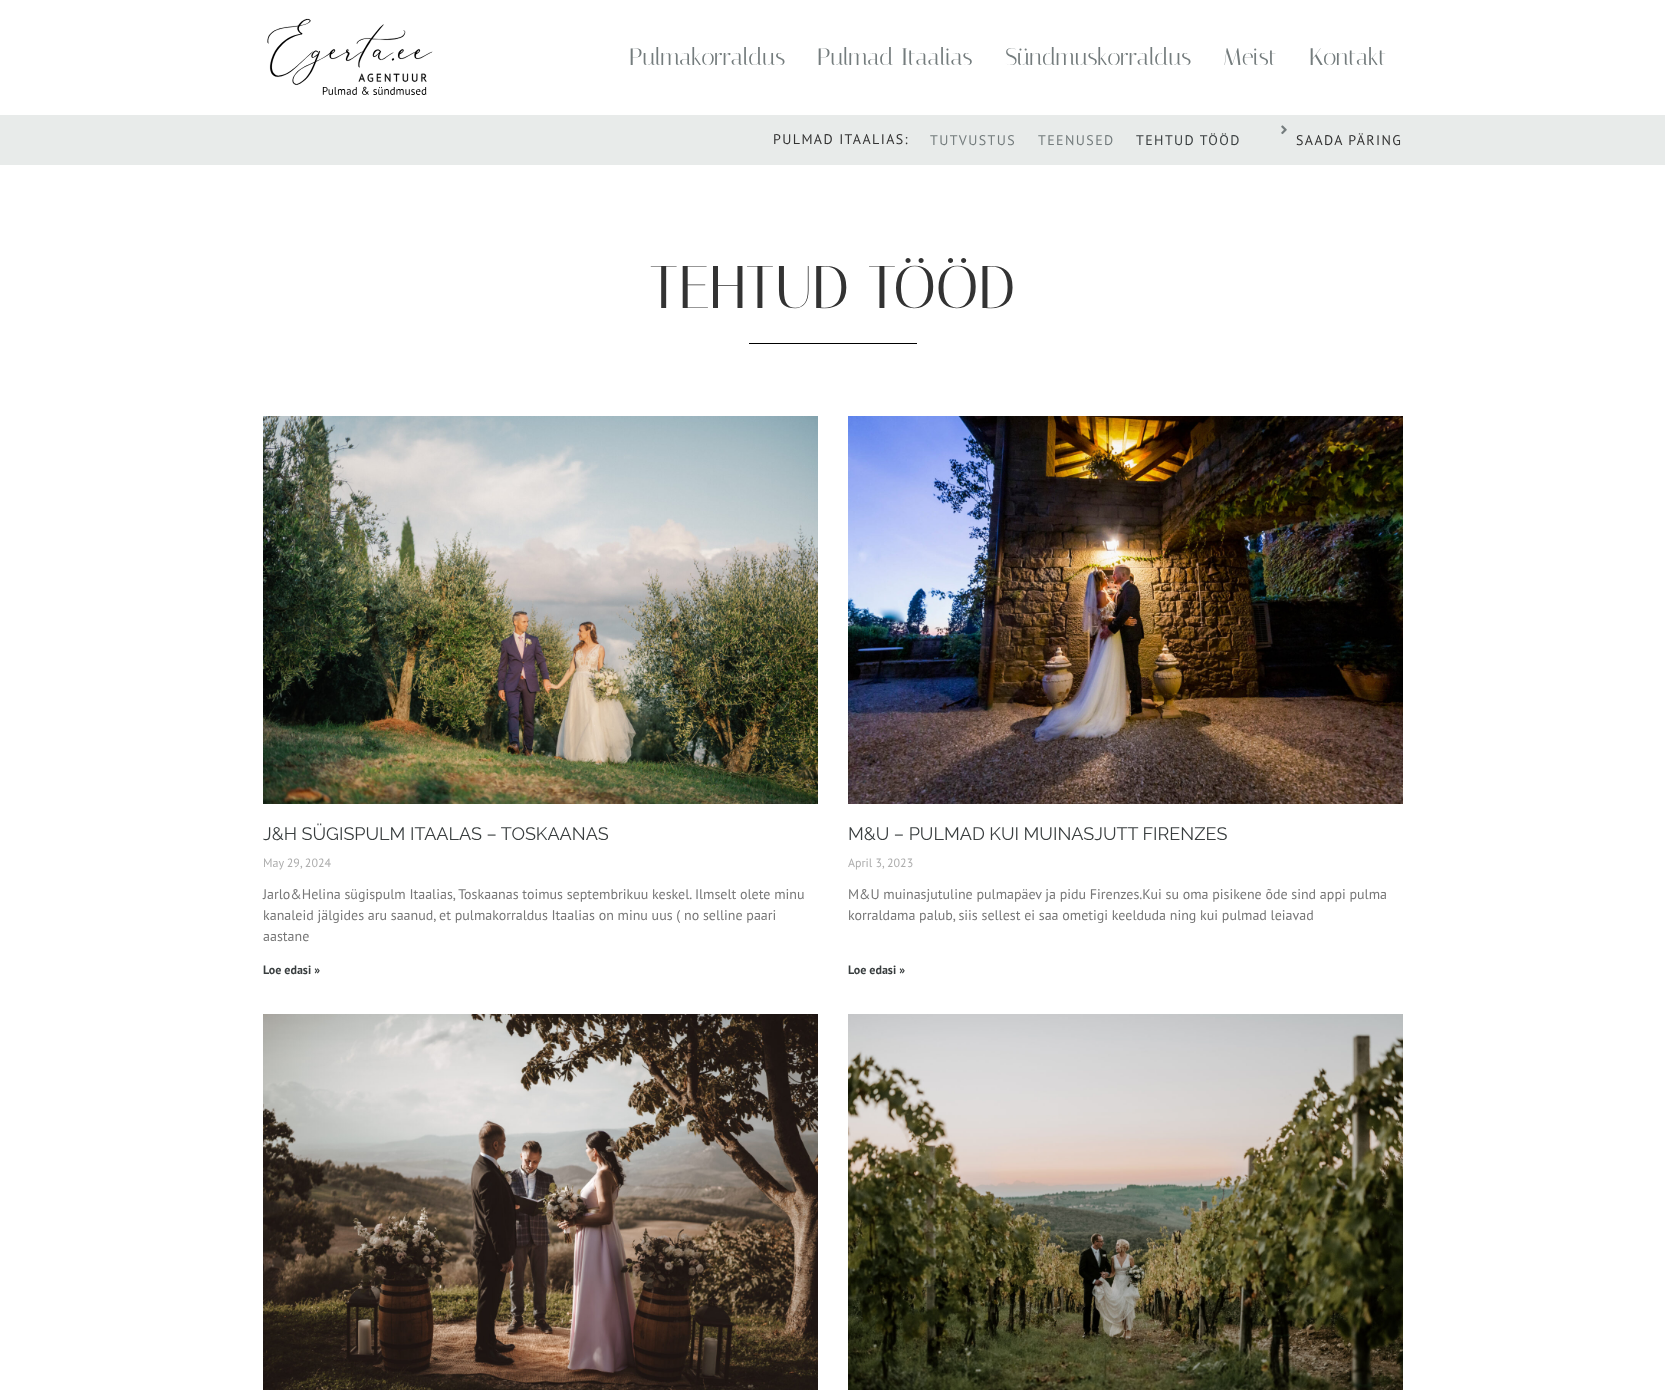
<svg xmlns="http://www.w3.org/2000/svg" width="1665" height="1390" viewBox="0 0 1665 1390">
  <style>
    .t1 { font: 24px Italiana; fill: #747c7d; }
    .t2 { font: 14px PT Sans; letter-spacing: 1.4px; fill: #333; }
    .t3 { font: 14px PT Sans; letter-spacing: 1.4px; fill: #747c7d; }
    .t4 { font: 14px PT Sans; letter-spacing: 1.4px; fill: #393e3f; }
    .t5 { font: 60px Italiana; fill: #333; }
    .t6 { font: 18px Raleway; fill: #393e3f; }
    .t7 { font: 12px PT Sans; fill: #adadad; }
    .t8 { font: 14px PT Sans; fill: #777; }
    .t9 { font: bold 12px PT Sans; fill: #393e3f; }
  </style>
  <rect width="100%" height="100%" fill="#fff"/>
  <image x="267" y="18" width="166" height="77" href="images/1.png"/>
  <text x="629" y="65" class="t1">Pulmakorraldus</text>
  <text x="817" y="65" class="t1">Pulmad Itaalias</text>
  <text x="1005" y="65" class="t1">Sündmuskorraldus</text>
  <text x="1223" y="65" class="t1">Meist</text>
  <text x="1309" y="65" class="t1">Kontakt</text>
  <rect x="0" y="115" width="1665" height="50" fill="#e8ebea"/>
  <text x="773" y="144" class="t2">PULMAD ITAALIAS:</text>
  <text x="930" y="145" class="t3">TUTVUSTUS</text>
  <text x="1038" y="145" class="t3">TEENUSED</text>
  <text x="1136" y="145" class="t4">TEHTUD TÖÖD</text>
  <image x="1281" y="125" width="6" height="10" href="images/2.png"/>
  <text x="1296" y="145" class="t2">SAADA PÄRING</text>
  <text x="649" y="308" class="t5">TEHTUD TÖÖD</text>
  <rect x="749" y="343" width="168" height="1" fill="#000"/>
  <image x="263" y="416" width="555" height="388" href="images/3.png"/>
  <text x="263" y="840" class="t6">J&amp;H SÜGISPULM ITAALAS – TOSKAANAS</text>
  <text x="263" y="867" class="t7">May 29, 2024</text>
  <text x="263" y="899" class="t8">Jarlo&amp;Helina sügispulm Itaalias, Toskaanas toimus septembrikuu keskel. Ilmselt olete minu</text>
  <text x="263" y="920" class="t8">kanaleid jälgides aru saanud, et pulmakorraldus Itaalias on minu uus ( no selline paari</text>
  <text x="263" y="941" class="t8">aastane</text>
  <text x="263" y="974" class="t9">Loe edasi »</text>
  <image x="848" y="416" width="555" height="388" href="images/4.png"/>
  <text x="848" y="840" class="t6">M&amp;U – PULMAD KUI MUINASJUTT FIRENZES</text>
  <text x="848" y="867" class="t7">April 3, 2023</text>
  <text x="848" y="899" class="t8">M&amp;U muinasjutuline pulmapäev ja pidu Firenzes.Kui su oma pisikene õde sind appi pulma</text>
  <text x="848" y="920" class="t8">korraldama palub, siis sellest ei saa ometigi keelduda ning kui pulmad leiavad</text>
  <text x="848" y="974" class="t9">Loe edasi »</text>
  <image x="263" y="1014" width="555" height="376" href="images/5.png"/>
  <image x="848" y="1014" width="555" height="376" href="images/6.png"/>
</svg>
